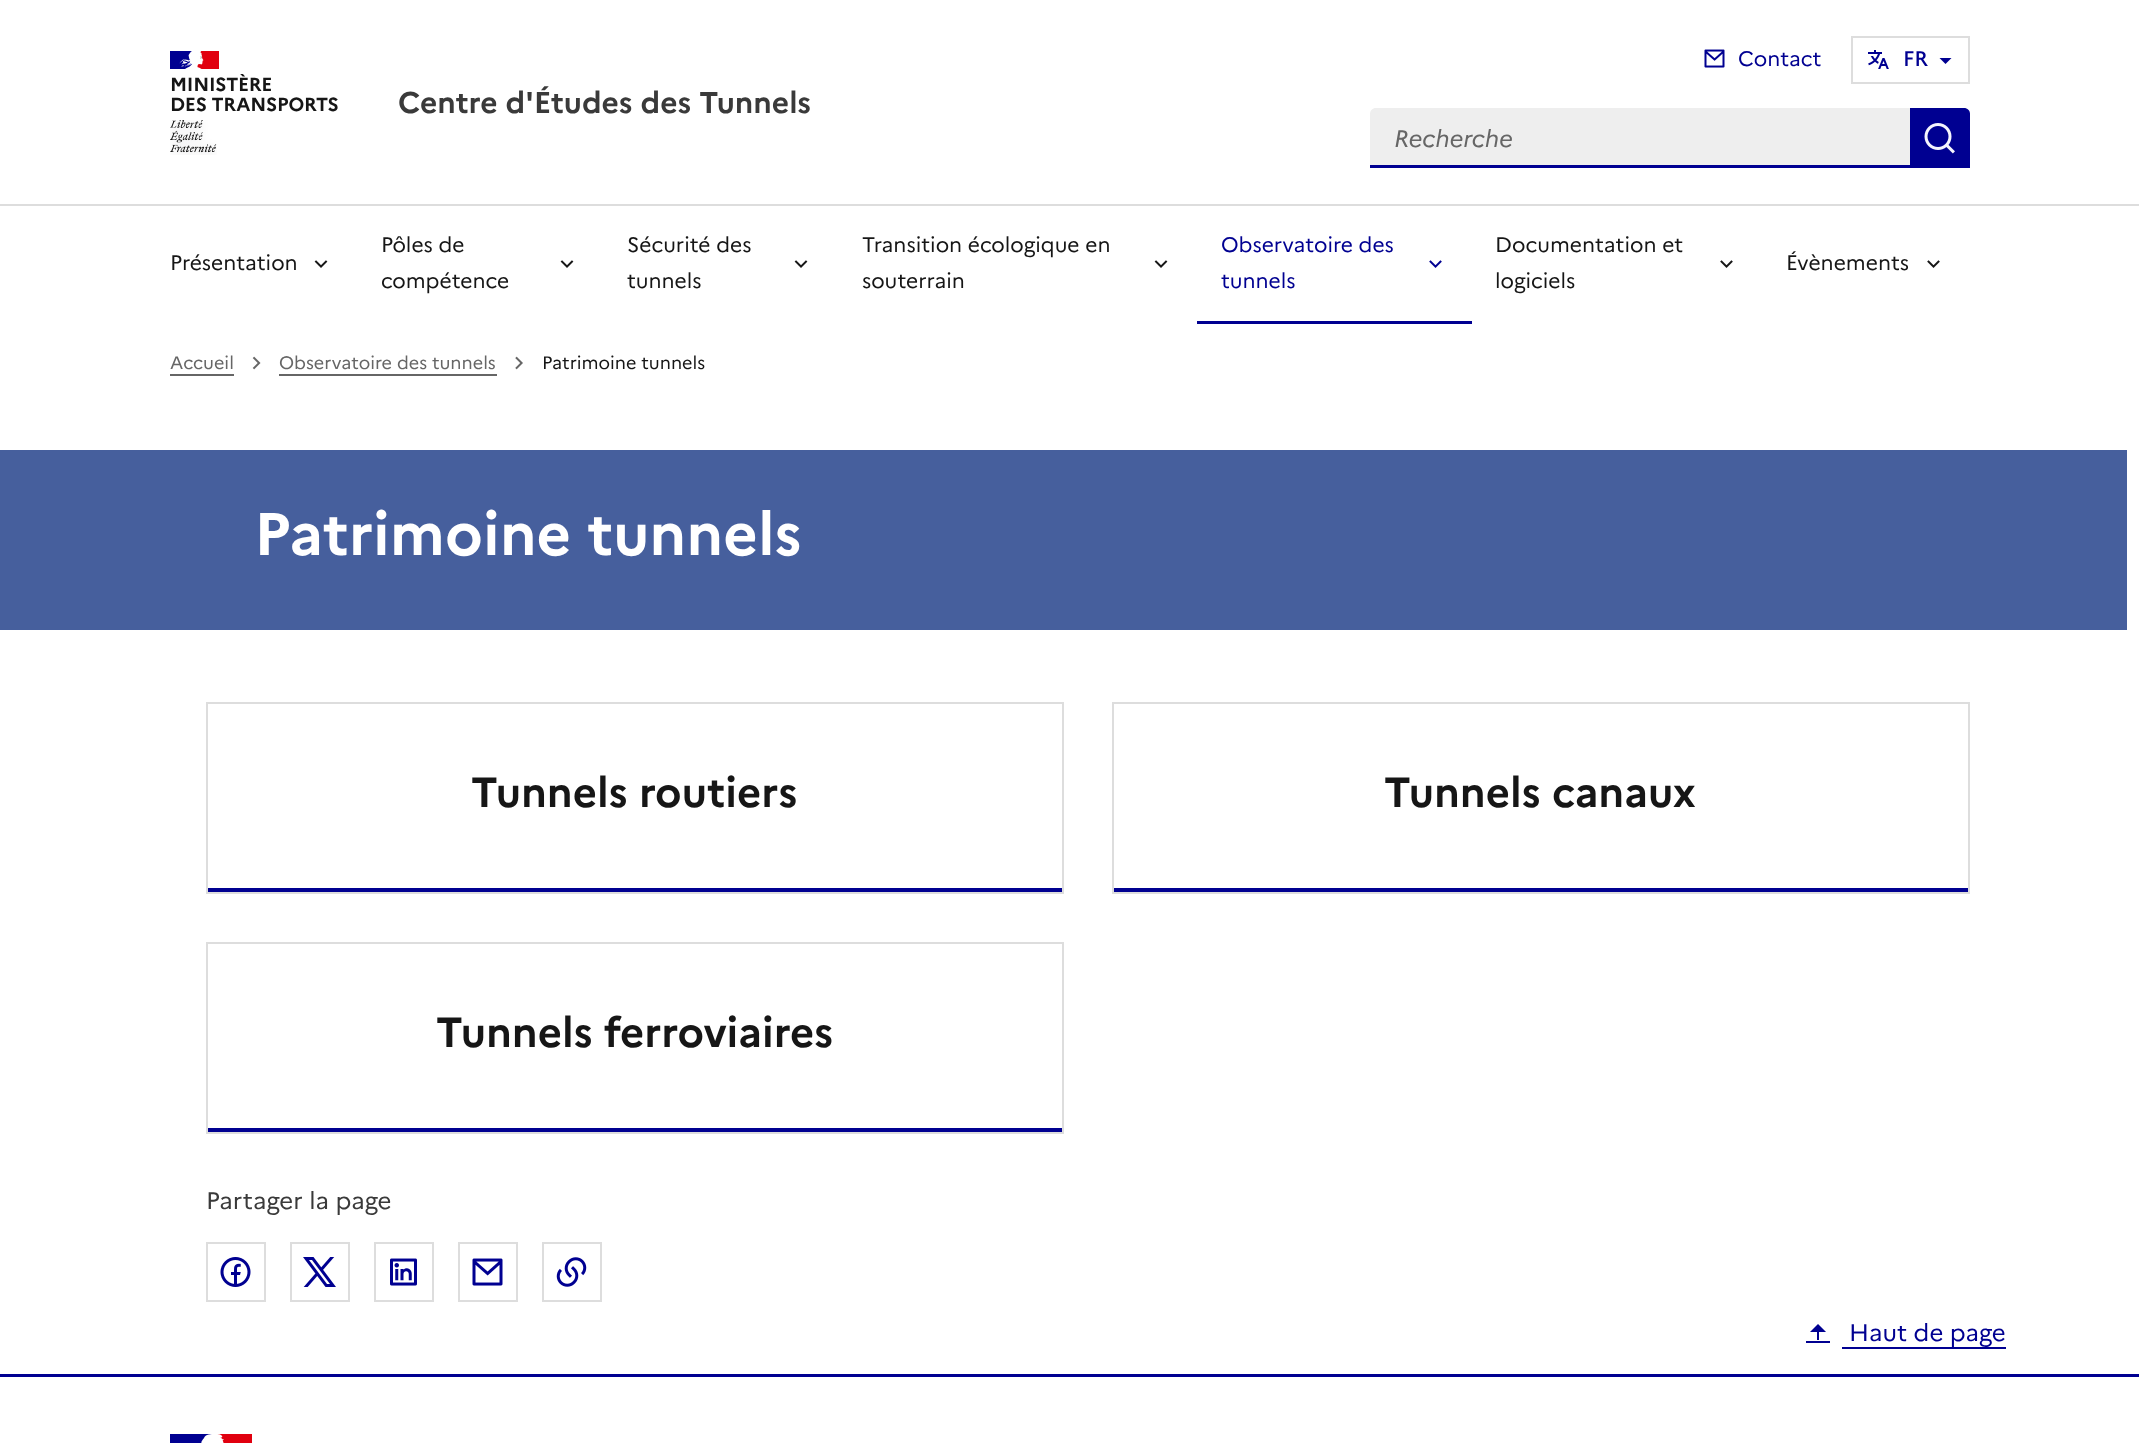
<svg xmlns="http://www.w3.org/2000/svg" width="2139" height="1443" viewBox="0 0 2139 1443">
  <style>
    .t1 { font: bold 19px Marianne; letter-spacing: -0.25px; fill: #161616; }
    .t2 { font: bold 30px Marianne; fill: #3a3a3a; }
    .t3 { font: 21px Marianne; fill: #000091; }
    .t4 { font: 500 21px Marianne; fill: #000091; }
    .t5 { font: italic 24px Marianne; fill: #666; }
    .t6 { font: 21px Marianne; fill: #161616; }
    .t7 { font: 18px Marianne; fill: #666; }
    .t8 { font: 18px Marianne; fill: #161616; }
    .t9 { font: bold 60px Marianne; fill: #fff; }
    .t10 { font: bold 42px Marianne; fill: #161616; }
    .t11 { font: 24px Marianne; fill: #3a3a3a; }
    .t12 { font: 24px Marianne; fill: #000091; }
  </style>
  <rect width="100%" height="100%" fill="#fff"/>
  <rect x="170" y="51" width="23" height="18" fill="#000091"/>
  <rect x="197" y="51" width="22" height="18" fill="#e1000f"/>
  <image x="179" y="51" width="25" height="18" href="images/1.png"/>
  <text x="170" y="91" class="t1">MINISTÈRE</text>
  <text x="170" y="111" class="t1">DES TRANSPORTS</text>
  <image x="170" y="120" width="47" height="35" href="images/2.png"/>
  <text x="398" y="113" class="t2">Centre d'Études des Tunnels</text>
  <image x="1704" y="49" width="21" height="19" href="images/3.png"/>
  <text x="1738" y="66" class="t3">Contact</text>
  <rect x="1852" y="37" width="117" height="46" fill="none" stroke="#ddd" stroke-width="2"/>
  <image x="1868" y="50" width="21" height="19" href="images/4.png"/>
  <text x="1903" y="66" class="t4">FR</text>
  <path d="M1945.5 64L1939.5 58H1951.5Z" fill="#000091"/>
  <path d="M1376 108H1910V168H1370V114C1370 110.5 1372.5 108 1376 108Z" fill="#eee"/>
  <rect x="1370" y="165" width="540" height="3" fill="#000091"/>
  <text x="1394" y="147" class="t5">Recherche</text>
  <path d="M1910 108H1964C1967.5 108 1970 110.5 1970 114V168H1910Z" fill="#000091"/>
  <image x="1924" y="123" width="31" height="31" href="images/5.png"/>
  <rect x="0" y="204" width="2139" height="2" fill="#ddd"/>
  <text x="170" y="270" class="t6">Présentation</text>
  <image x="314" y="260" width="14" height="8" href="images/6.png"/>
  <text x="381" y="252" class="t6">Pôles de</text>
  <image x="560" y="260" width="14" height="8" href="images/6.png"/>
  <text x="381" y="288" class="t6">compétence</text>
  <text x="627" y="252" class="t6">Sécurité des</text>
  <image x="794" y="260" width="14" height="8" href="images/6.png"/>
  <text x="627" y="288" class="t6">tunnels</text>
  <text x="862" y="252" class="t6">Transition écologique en</text>
  <image x="1154" y="260" width="14" height="8" href="images/6.png"/>
  <text x="862" y="288" class="t6">souterrain</text>
  <text x="1221" y="252" class="t3">Observatoire des</text>
  <image x="1429" y="260" width="13" height="8" href="images/7.png"/>
  <text x="1221" y="288" class="t3">tunnels</text>
  <rect x="1197" y="321" width="275" height="3" fill="#000091"/>
  <text x="1495" y="252" class="t6">Documentation et</text>
  <image x="1720" y="260" width="13" height="8" href="images/8.png"/>
  <text x="1495" y="288" class="t6">logiciels</text>
  <text x="1786" y="270" class="t6">Évènements</text>
  <image x="1927" y="260" width="13" height="8" href="images/8.png"/>
  <text x="170" y="369" class="t7">Accueil</text>
  <rect x="170" y="374" width="64" height="2" fill="#666"/>
  <image x="252" y="356" width="9" height="14" href="images/9.png"/>
  <text x="279" y="369" class="t7">Observatoire des tunnels</text>
  <rect x="279" y="374" width="218" height="2" fill="#666"/>
  <image x="515" y="356" width="8" height="14" href="images/10.png"/>
  <text x="542" y="369" class="t8">Patrimoine tunnels</text>
  <rect x="0" y="450" width="2127" height="180" fill="#465f9d"/>
  <text x="254" y="555" class="t9">Patrimoine tunnels</text>
  <rect x="206" y="888" width="858" height="4" fill="#000091"/>
  <rect x="207" y="703" width="856" height="190" fill="none" stroke="#ddd" stroke-width="2"/>
  <text x="471" y="807" class="t10">Tunnels routiers</text>
  <rect x="1112" y="888" width="858" height="4" fill="#000091"/>
  <rect x="1113" y="703" width="856" height="190" fill="none" stroke="#ddd" stroke-width="2"/>
  <text x="1384" y="807" class="t10">Tunnels canaux</text>
  <rect x="206" y="1128" width="858" height="4" fill="#000091"/>
  <rect x="207" y="943" width="856" height="190" fill="none" stroke="#ddd" stroke-width="2"/>
  <text x="436" y="1047" class="t10">Tunnels ferroviaires</text>
  <text x="206" y="1209" class="t11">Partager la page</text>
  <rect x="207" y="1243" width="58" height="58" fill="none" stroke="#ddd" stroke-width="2"/>
  <image x="220" y="1257" width="31" height="30" href="images/11.png"/>
  <rect x="291" y="1243" width="58" height="58" fill="none" stroke="#ddd" stroke-width="2"/>
  <image x="303" y="1257" width="33" height="30" href="images/12.png"/>
  <rect x="375" y="1243" width="58" height="58" fill="none" stroke="#ddd" stroke-width="2"/>
  <image x="390" y="1258" width="27" height="28" href="images/13.png"/>
  <rect x="459" y="1243" width="58" height="58" fill="none" stroke="#ddd" stroke-width="2"/>
  <image x="472" y="1258" width="31" height="28" href="images/14.png"/>
  <rect x="543" y="1243" width="58" height="58" fill="none" stroke="#ddd" stroke-width="2"/>
  <image x="556" y="1257" width="31" height="30" href="images/15.png"/>
  <rect x="1806" y="1341" width="24" height="2" fill="#000091"/>
  <rect x="1842" y="1347" width="164" height="2" fill="#000091"/>
  <image x="1810" y="1324" width="16" height="16" href="images/16.png"/>
  <text x="1849" y="1341" class="t12">Haut de page</text>
  <rect x="0" y="1374" width="2139" height="3" fill="#000091"/>
  <rect x="170" y="1434" width="42" height="9" fill="#000091"/>
  <rect x="217" y="1434" width="35" height="9" fill="#e1000f"/>
  <image x="201" y="1434" width="23" height="9" href="images/17.png"/>
</svg>
